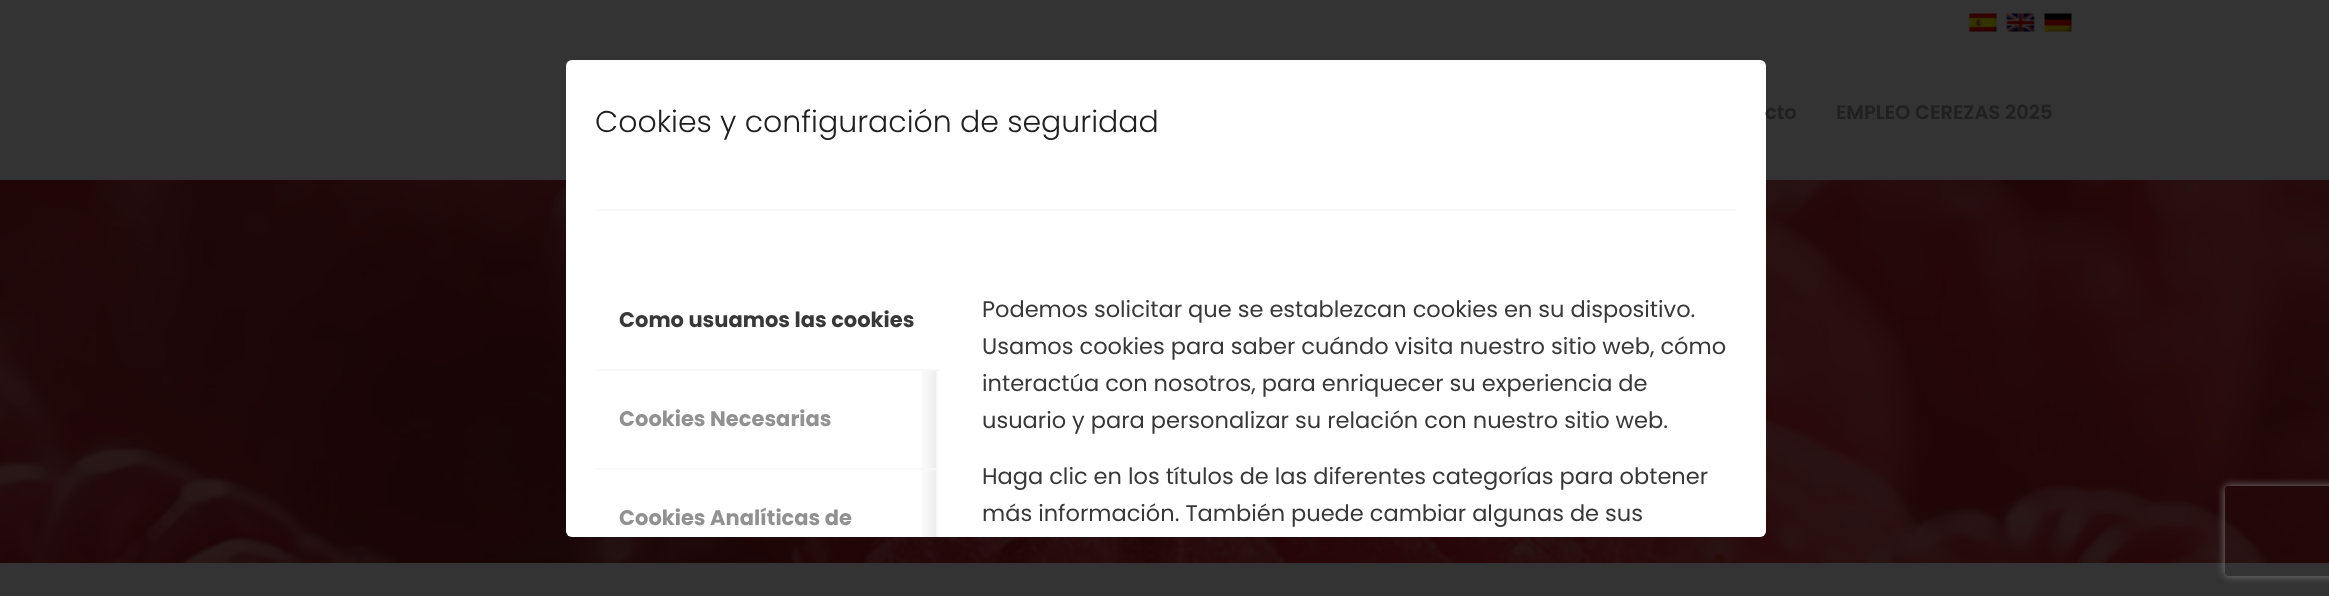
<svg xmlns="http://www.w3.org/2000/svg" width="2329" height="596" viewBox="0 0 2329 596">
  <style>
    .t1 { font: 300 30px Poppins; fill: #202020; }
    .t2 { font: bold 21px Poppins; fill: #383838; }
    .t3 { font: bold 21px Poppins; fill: #919191; }
    .t4 { font: 22.5px Poppins; fill: #383838; }
    .t5 { font: 600 19.5px Poppins; fill: #202020; }
  </style>
  <defs>
    <clipPath id="clip1"><rect x="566" y="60" width="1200" height="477" rx="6"/></clipPath>
    <clipPath id="clip2"><rect x="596" y="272" width="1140" height="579"/></clipPath>
    <clipPath id="clip3"><rect x="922" y="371" width="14" height="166"/></clipPath>
    <clipPath id="clip4"><path d="M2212 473H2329V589H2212ZM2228 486H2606C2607.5 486 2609 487.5 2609 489V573C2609 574.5 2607.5 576 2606 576H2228C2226.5 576 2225 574.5 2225 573V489C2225 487.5 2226.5 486 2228 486Z" clip-rule="evenodd"/></clipPath>
  </defs>
  <rect width="100%" height="100%" fill="#333"/>
  <image x="0" y="180" width="2329" height="383" href="images/4.png"/>
  <rect x="566" y="60" width="1200" height="477" rx="6" fill="#fff"/>
  <text x="595" y="132" class="t1">Cookies y configuración de seguridad</text>
  <rect x="596" y="209" width="1140" height="2" fill="#f8f8f8"/>
  <g clip-path="url(#clip1)">
    <g clip-path="url(#clip2)">
      <g clip-path="url(#clip3)">
        <rect x="941" y="287" width="768" height="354" fill="#00000033" filter="blur(15px)"/>
      </g>
    </g>
  </g>
  <rect x="936" y="369" width="2" height="101" fill="#f8f8f8"/>
  <path d="M599 272H939V371H596V275C596 273.5 597.5 272 599 272Z" fill="#fff"/>
  <rect x="596" y="369" width="343" height="2" fill="#f8f8f8"/>
  <text x="619" y="327" class="t2">Como usuamos las cookies</text>
  <rect x="596" y="468" width="342" height="2" fill="#f8f8f8"/>
  <text x="619" y="426" class="t3">Cookies Necesarias</text>
  <rect x="936" y="468" width="2" height="69" fill="#f8f8f8"/>
  <text x="619" y="525" class="t3">Cookies Analíticas de</text>
  <text x="982" y="317" class="t4">Podemos solicitar que se establezcan cookies en su dispositivo.</text>
  <text x="982" y="354" class="t4">Usamos cookies para saber cuándo visita nuestro sitio web, cómo</text>
  <text x="982" y="391" class="t4">interactúa con nosotros, para enriquecer su experiencia de</text>
  <text x="982" y="428" class="t4">usuario y para personalizar su relación con nuestro sitio web.</text>
  <text x="982" y="484" class="t4">Haga clic en los títulos de las diferentes categorías para obtener</text>
  <text x="982" y="521" class="t4">más información. También puede cambiar algunas de sus</text>
  <image x="1969" y="13" width="28" height="19" href="images/1.png"/>
  <image x="2006" y="13" width="29" height="19" href="images/2.png"/>
  <image x="2044" y="13" width="28" height="19" href="images/3.png"/>
  <text x="1765" y="119" class="t5">cto</text>
  <text x="1836" y="119" class="t5">EMPLEO CEREZAS 2025</text>
  <g clip-path="url(#clip4)">
    <rect x="2225" y="486" width="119" height="90" rx="3" fill="#808080" filter="blur(4px)"/>
  </g>
</svg>
